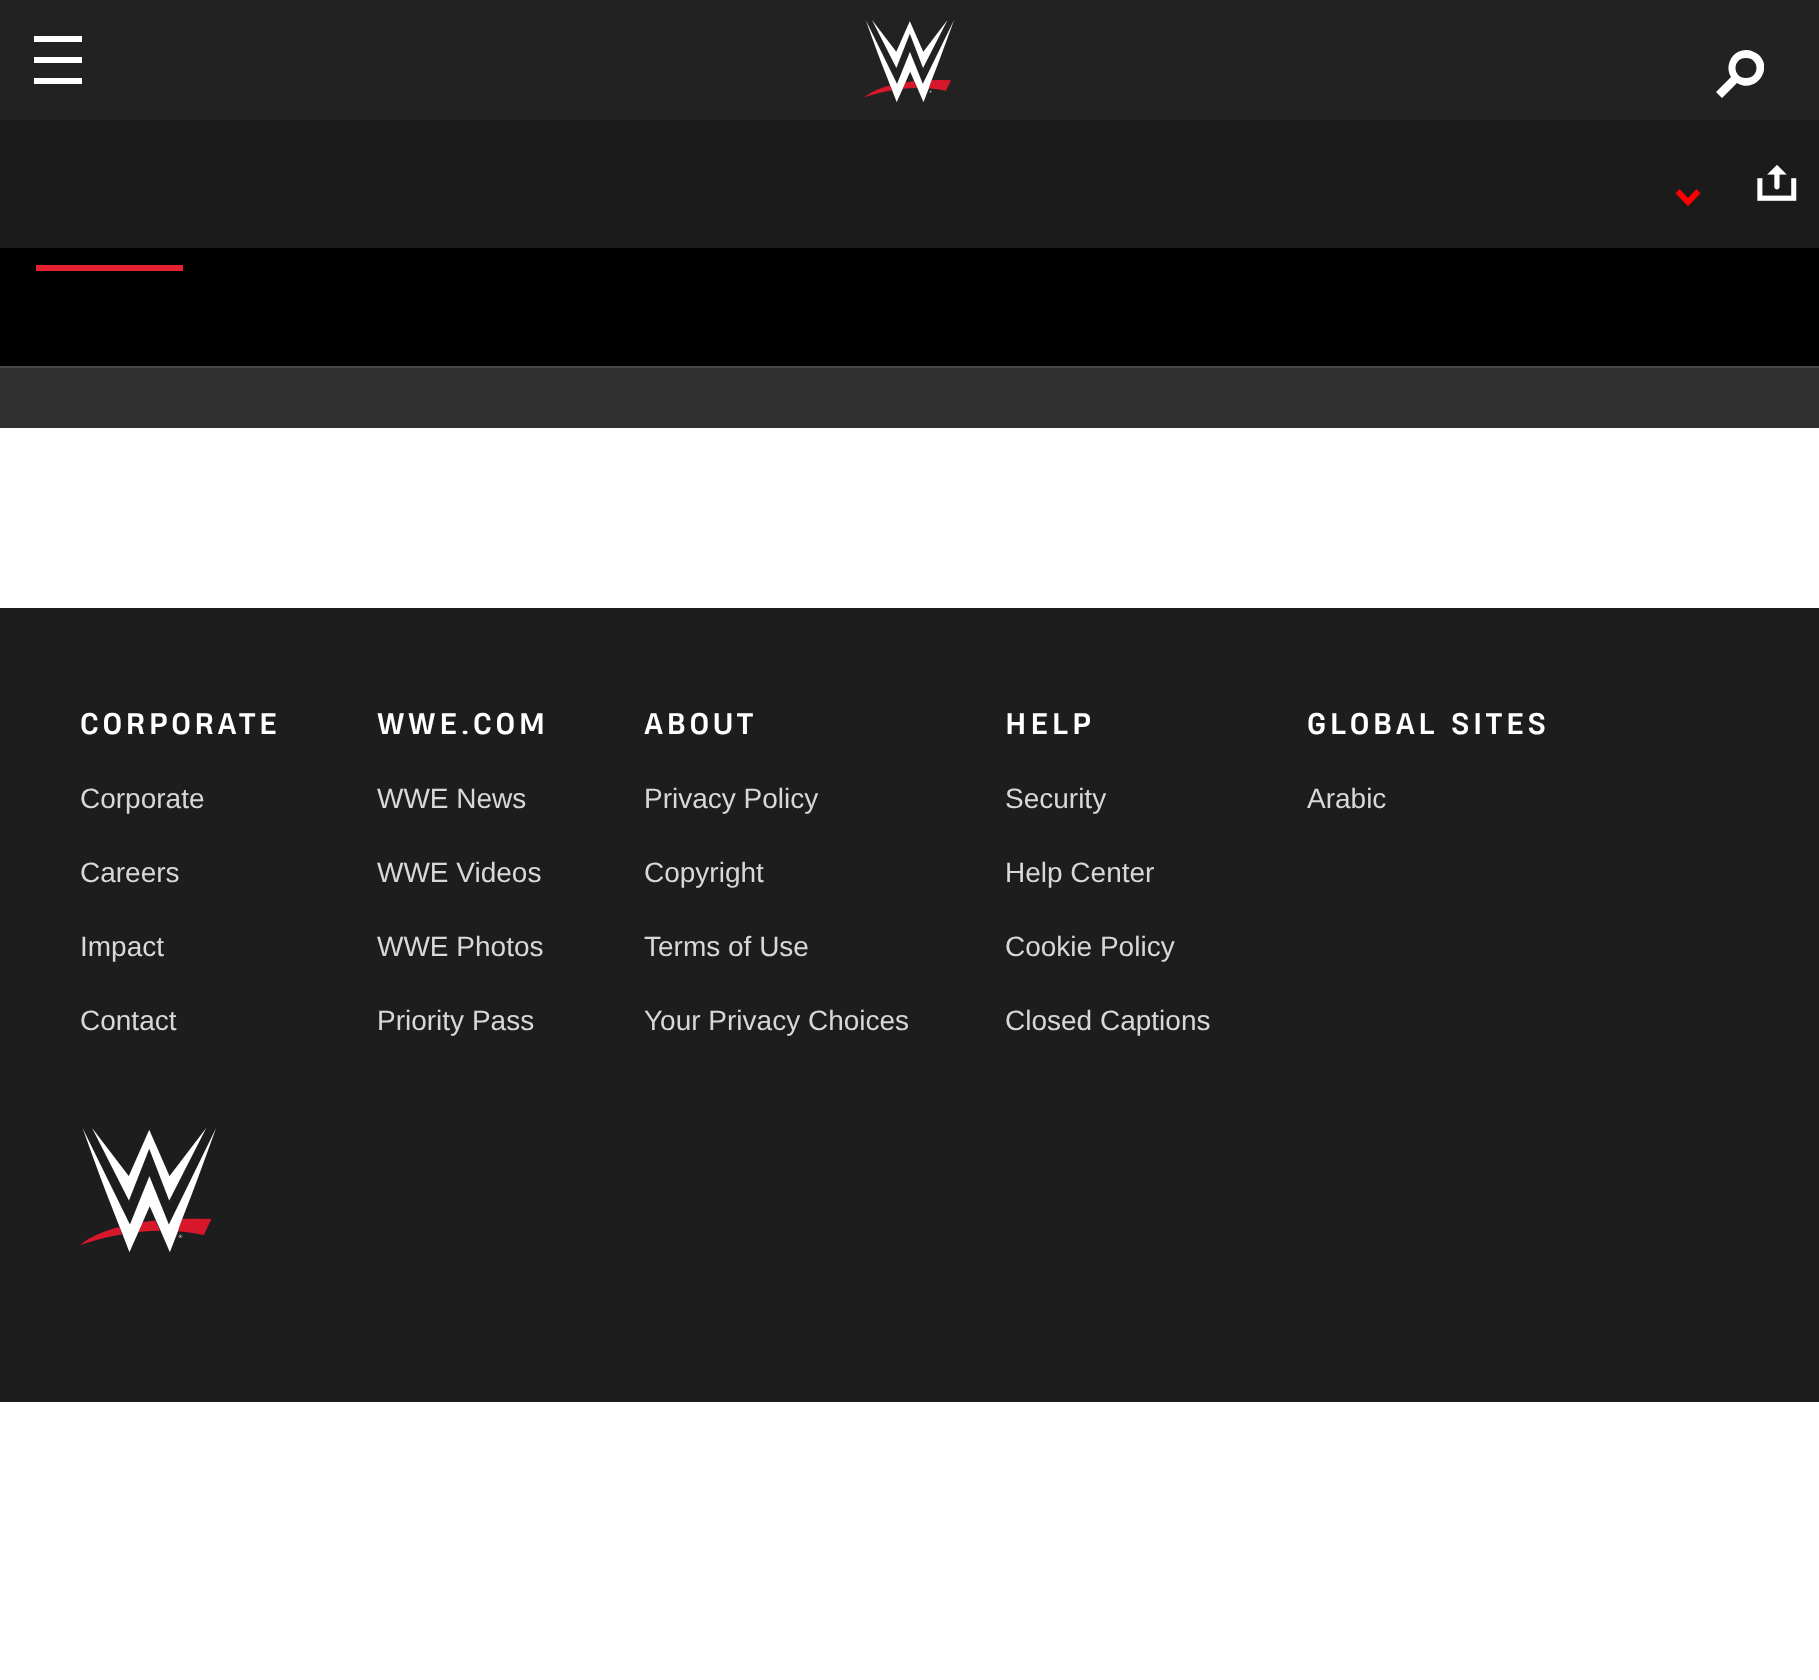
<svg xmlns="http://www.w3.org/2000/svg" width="1819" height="1680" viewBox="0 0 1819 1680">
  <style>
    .t1 { font: bold 28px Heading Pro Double; letter-spacing: 3.5px; fill: #fff; }
    .t2 { font: 28px Liberation Sans; fill: #d8d8d8; }
  </style>
  <defs>
    <clipPath id="clip1"><rect x="1716" y="50" width="48" height="48"/></clipPath>
  </defs>
  <rect width="100%" height="100%" fill="#fff"/>
  <rect x="0" y="0" width="1819" height="120" fill="#222"/>
  <path d="M36 42H34V36H82V42ZM36 63H34V57H82V63ZM36 84H34V78H82V84Z" fill="#fff" fill-rule="evenodd"/>
  <image x="864" y="20" width="90" height="82" href="images/1.png"/>
  <g clip-path="url(#clip1)">
    <path d="M1746 50C1751 50 1755 52 1759 55C1774 70 1754 94 1737 83L1722 98L1716 92L1731 77C1724 66 1732 50 1746 50ZM1746 58C1732 58 1732 78 1746 78C1760 78 1760 58 1746 58Z" fill="#fff" fill-rule="evenodd"/>
  </g>
  <rect x="0" y="368" width="1819" height="60" fill="#303030"/>
  <rect x="0" y="120" width="1819" height="128" fill="#1b1b1b"/>
  <path d="M1696.5 189L1700.5 193.5L1688 206L1684 202Z" fill="#f00"/>
  <path d="M1679.5 189L1692 202L1688 206L1675.5 193.5Z" fill="#f00"/>
  <image x="1757" y="164" width="40" height="37" href="images/2.png"/>
  <rect x="0" y="248" width="1819" height="118" fill="#000"/>
  <rect x="0" y="366" width="1819" height="2" fill="#474747"/>
  <rect x="36" y="265" width="147" height="6" fill="#e7202f"/>
  <rect x="0" y="608" width="1819" height="794" fill="#1d1d1d"/>
  <text x="80" y="734" class="t1">CORPORATE</text>
  <text x="80" y="808" class="t2">Corporate</text>
  <text x="80" y="882" class="t2">Careers</text>
  <text x="80" y="956" class="t2">Impact</text>
  <text x="80" y="1030" class="t2">Contact</text>
  <text x="377" y="734" class="t1">WWE.COM</text>
  <text x="377" y="808" class="t2">WWE News</text>
  <text x="377" y="882" class="t2">WWE Videos</text>
  <text x="377" y="956" class="t2">WWE Photos</text>
  <text x="377" y="1030" class="t2">Priority Pass</text>
  <text x="644" y="734" class="t1">ABOUT</text>
  <text x="644" y="808" class="t2">Privacy Policy</text>
  <text x="644" y="882" class="t2">Copyright</text>
  <text x="644" y="956" class="t2">Terms of Use</text>
  <text x="644" y="1030" class="t2">Your Privacy Choices</text>
  <text x="1005" y="734" class="t1">HELP</text>
  <text x="1005" y="808" class="t2">Security</text>
  <text x="1005" y="882" class="t2">Help Center</text>
  <text x="1005" y="956" class="t2">Cookie Policy</text>
  <text x="1005" y="1030" class="t2">Closed Captions</text>
  <text x="1307" y="734" class="t1">GLOBAL SITES</text>
  <text x="1307" y="808" class="t2">Arabic</text>
  <image x="80" y="1128" width="136" height="124" href="images/3.png"/>
</svg>
